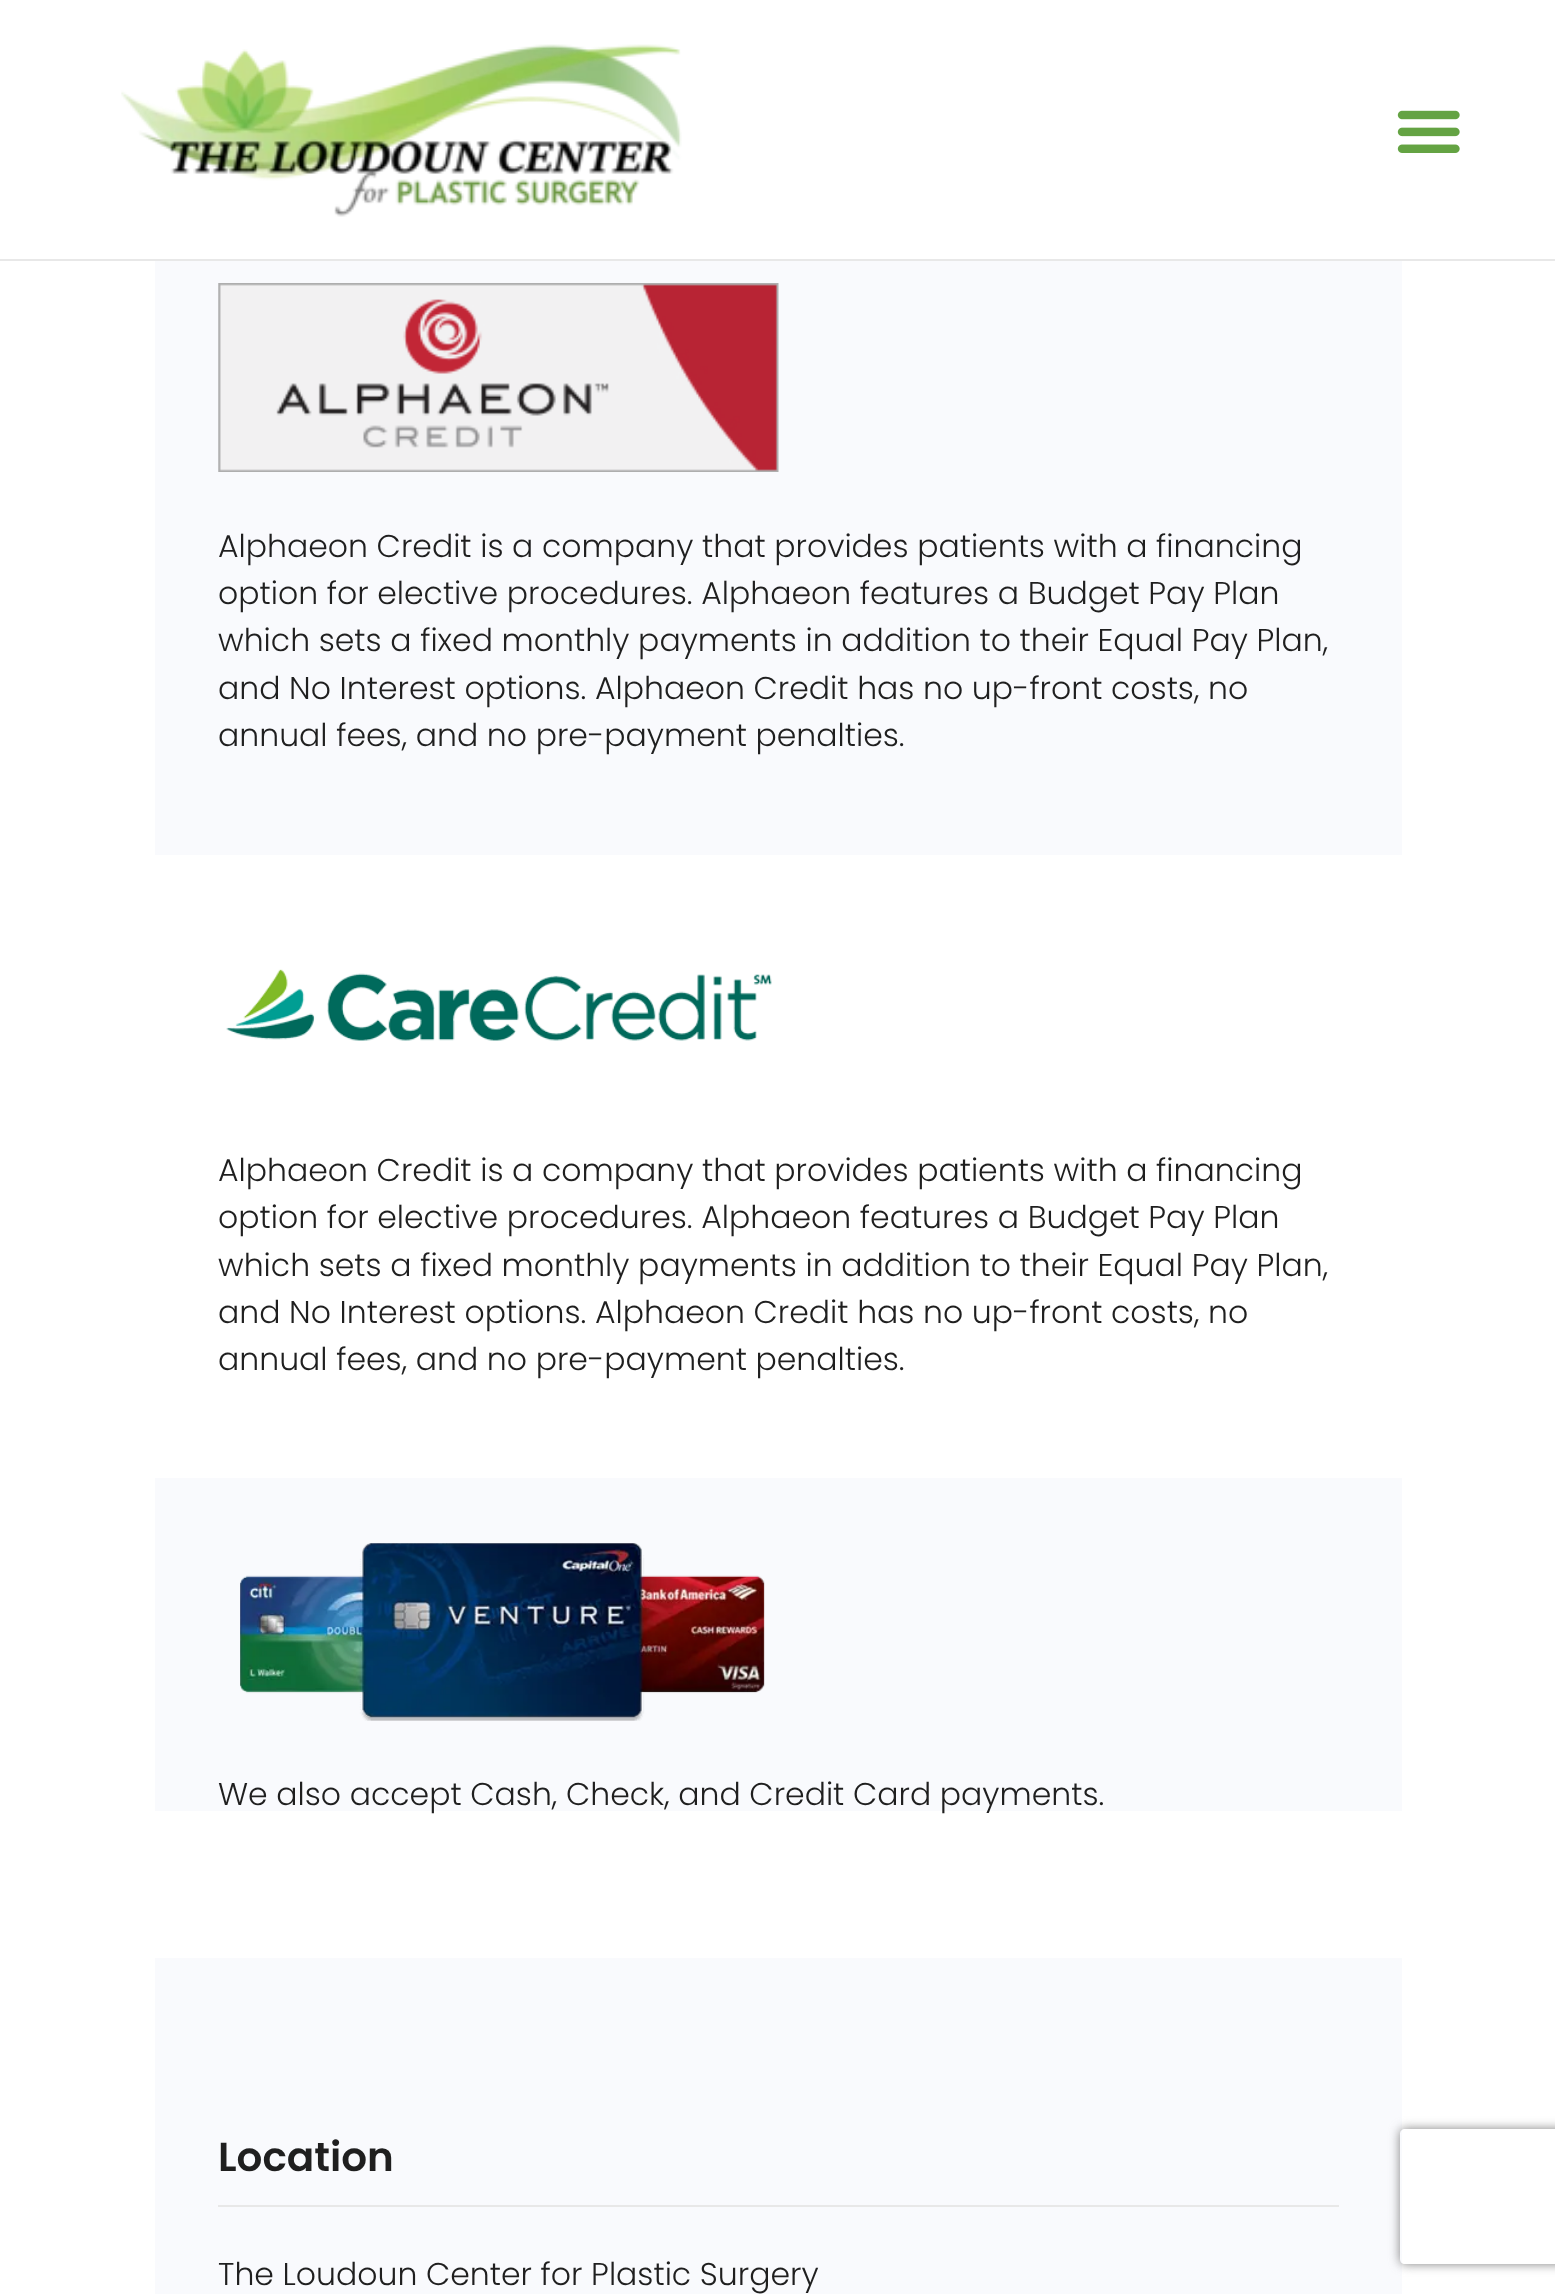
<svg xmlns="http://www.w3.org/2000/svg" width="1555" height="2294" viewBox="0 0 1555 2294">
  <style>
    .t1 { font: 300 31.5px Poppins; fill: #1f1f1f; }
    .t2 { font: 600 40.5px Poppins; fill: #1f1f1f; }
  </style>
  <defs>
    <clipPath id="clip1"><path d="M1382 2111H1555V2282H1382ZM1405 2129H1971C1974 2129 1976 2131 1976 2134V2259C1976 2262 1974 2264 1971 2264H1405C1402 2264 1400 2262 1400 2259V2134C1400 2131 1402 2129 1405 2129Z" clip-rule="evenodd"/></clipPath>
  </defs>
  <rect width="100%" height="100%" fill="#fff"/>
  <rect x="0" y="259" width="1555" height="2" fill="#e8e8e8"/>
  <image x="121" y="44" width="561" height="173" href="images/1.png"/>
  <image x="1397" y="110" width="63" height="43" href="images/2.png"/>
  <rect x="155" y="261" width="1247" height="594" fill="#f9fafd"/>
  <image x="218" y="283" width="561" height="189" href="images/3.png"/>
  <text x="218" y="557" class="t1">Alphaeon Credit is a company that provides patients with a financing</text>
  <text x="218" y="604" class="t1">option for elective procedures. Alphaeon features a Budget Pay Plan</text>
  <text x="218" y="651" class="t1">which sets a fixed monthly payments in addition to their Equal Pay Plan,</text>
  <text x="218" y="699" class="t1">and No Interest options. Alphaeon Credit has no up-front costs, no</text>
  <text x="218" y="746" class="t1">annual fees, and no pre-payment penalties.</text>
  <image x="226" y="969" width="546" height="72" href="images/4.png"/>
  <text x="218" y="1181" class="t1">Alphaeon Credit is a company that provides patients with a financing</text>
  <text x="218" y="1228" class="t1">option for elective procedures. Alphaeon features a Budget Pay Plan</text>
  <text x="218" y="1276" class="t1">which sets a fixed monthly payments in addition to their Equal Pay Plan,</text>
  <text x="218" y="1323" class="t1">and No Interest options. Alphaeon Credit has no up-front costs, no</text>
  <text x="218" y="1370" class="t1">annual fees, and no pre-payment penalties.</text>
  <rect x="155" y="1478" width="1247" height="333" fill="#f9fafd"/>
  <image x="240" y="1543" width="525" height="178" href="images/5.png"/>
  <text x="218" y="1805" class="t1">We also accept Cash, Check, and Credit Card payments.</text>
  <rect x="155" y="1958" width="1247" height="336" fill="#f9fafd"/>
  <rect x="218" y="2205" width="1121" height="2" fill="#e8e8e8"/>
  <text x="218" y="2171" class="t2">Location</text>
  <text x="218" y="2285" class="t1">The Loudoun Center for Plastic Surgery</text>
  <g clip-path="url(#clip1)">
    <rect x="1400" y="2129" width="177" height="135" rx="5" fill="#808080" filter="blur(5.5px)"/>
  </g>
</svg>
